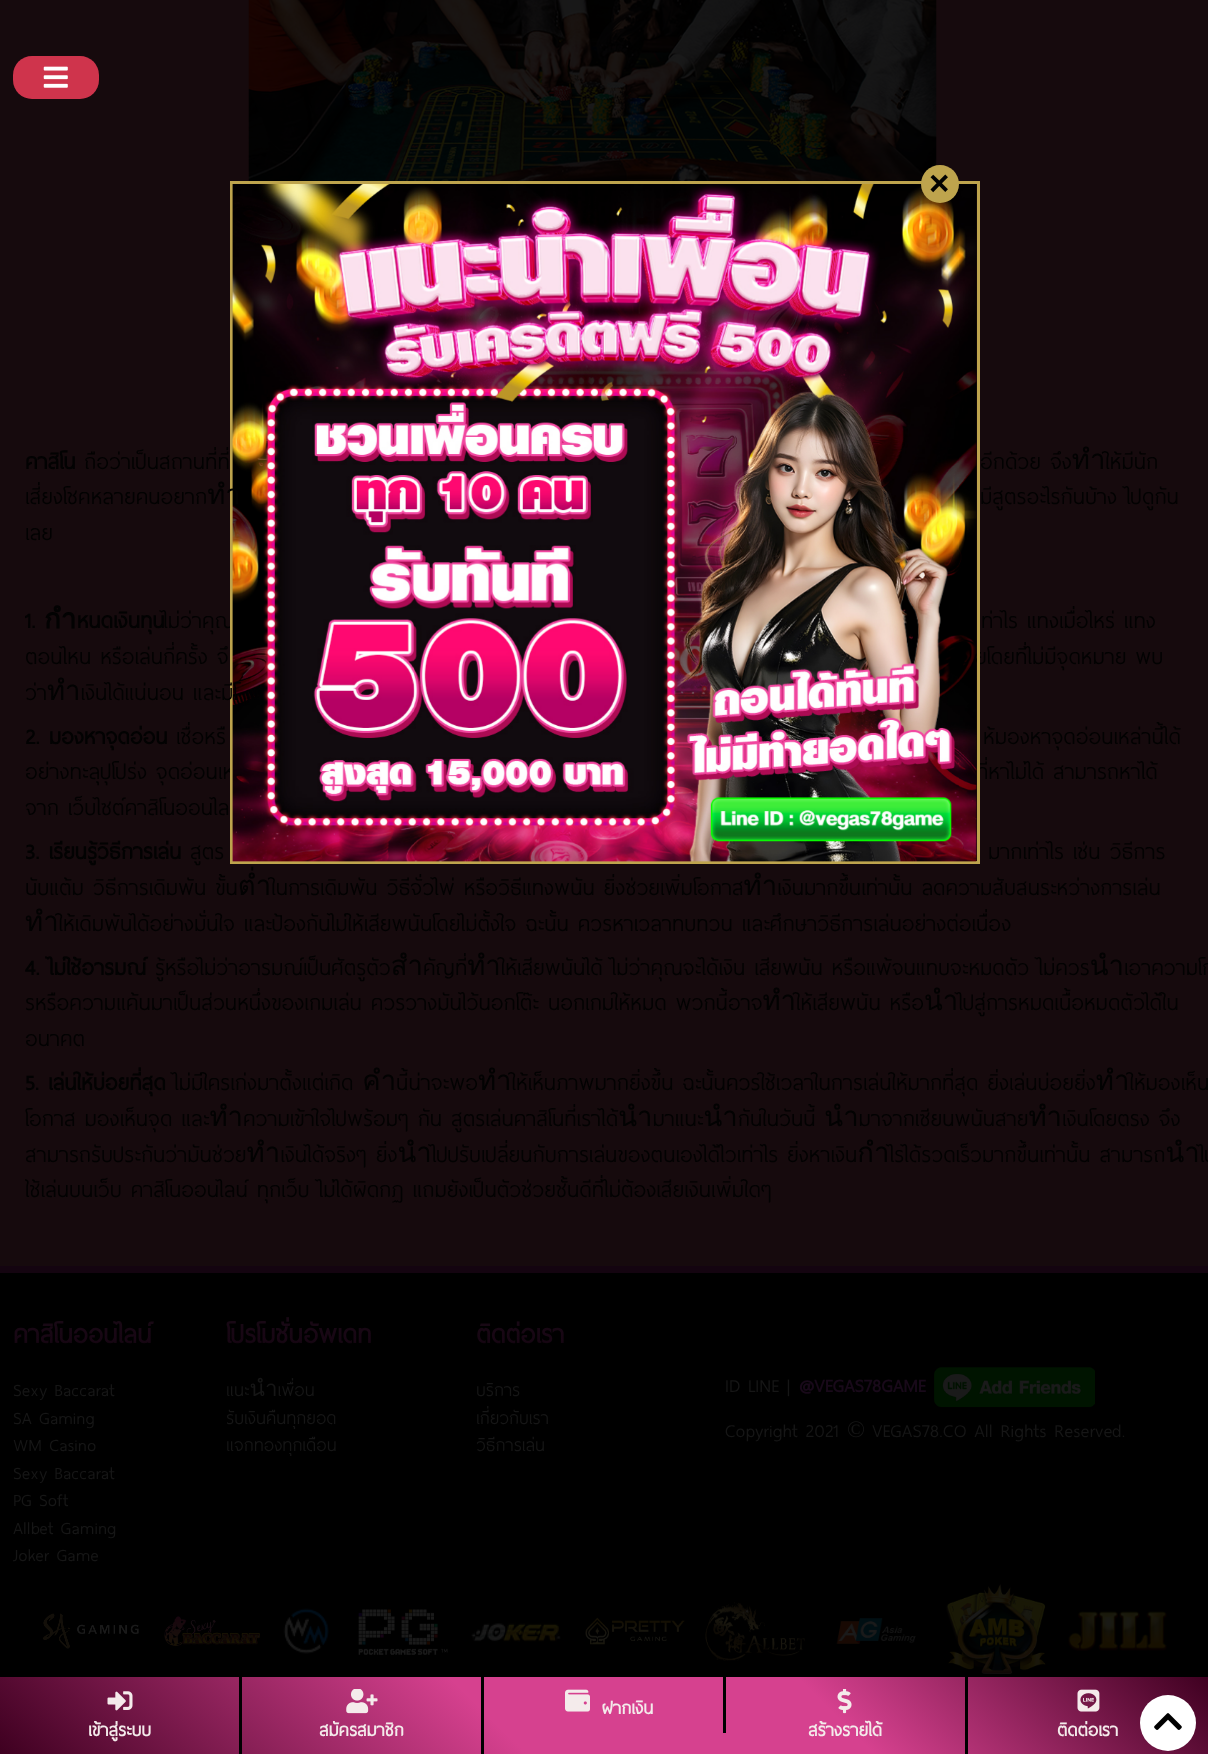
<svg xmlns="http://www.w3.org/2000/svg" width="1208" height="1754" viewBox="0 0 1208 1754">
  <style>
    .t1 { font: 27.5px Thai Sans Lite; fill: #020202; }
    .t2 { font: bold 35px Liberation Sans; fill: #020202; }
    .t3 { font: bold 27.5px Thai Sans Lite; fill: #020202; }
    .t4 { font: bold 32.5px Thai Sans Lite; fill: url(#g1); }
    .t5 { font: 22.5px Thai Sans Lite; fill: #161616; }
    .t6 { font: bold 32.5px Thai Sans Lite; fill: url(#g2); }
    .t7 { font: bold 32.5px Thai Sans Lite; fill: url(#g3); }
    .t8 { font: 23.75px Thai Sans Lite; fill: #161616; }
    .t9 { font: bold 23.75px Thai Sans Lite; fill: #180919; }
    .t10 { font: 23.75px Liberation Serif; fill: #161616; }
    .t11 { font: bold 22.5px Thai Sans Lite; fill: #f4ebeb; }
  </style>
  <defs>
    <clipPath id="clip1"><rect x="25" y="0" width="1159" height="1229"/></clipPath>
    <linearGradient id="g1" gradientUnits="userSpaceOnUse" x1="119" y1="1316" x2="119" y2="1351"><stop offset="0" stop-color="#180914"/><stop offset="0.45" stop-color="#180714"/><stop offset="0.7" stop-color="#170613"/><stop offset="1" stop-color="#0b0108"/></linearGradient>
    <linearGradient id="g2" gradientUnits="userSpaceOnUse" x1="351" y1="1316" x2="351" y2="1351"><stop offset="0" stop-color="#180914"/><stop offset="0.45" stop-color="#180714"/><stop offset="0.7" stop-color="#170613"/><stop offset="1" stop-color="#0b0108"/></linearGradient>
    <linearGradient id="g3" gradientUnits="userSpaceOnUse" x1="583" y1="1316" x2="583" y2="1351"><stop offset="0" stop-color="#180914"/><stop offset="0.45" stop-color="#180714"/><stop offset="0.7" stop-color="#170613"/><stop offset="1" stop-color="#0b0108"/></linearGradient>
    <linearGradient id="g4" gradientUnits="userSpaceOnUse" x1="283" y1="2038" x2="926" y2="1394"><stop offset="0" stop-color="#3e0020"/><stop offset="0.41" stop-color="#d6418f"/><stop offset="0.68" stop-color="#d6418f"/><stop offset="1" stop-color="#3e0020"/></linearGradient>
  </defs>
  <rect width="100%" height="100%" fill="#000"/>
  <rect x="0" y="0" width="1208" height="1266" fill="#160a0d"/>
  <rect x="13" y="56" width="86" height="43" rx="19" fill="#cf344c"/>
  <image x="43" y="66" width="25" height="22" href="images/1.png"/>
  <text x="980" y="469" class="t1">อีกด้วย จึงทำให้มีนัก</text>
  <text x="980" y="504" class="t1">มีสูตรอะไรกันบ้าง ไปดูกัน</text>
  <text x="163" y="628" class="t1">ไม่ว่าคุณ</text>
  <text x="981" y="628" class="t1">ท่าไร แทงเมื่อไหร่ แทง</text>
  <text x="975" y="664" class="t1">ยโดยที่ไม่มีจุดหมาย พบ</text>
  <text x="983" y="744" class="t1">ห้มองหาจุดอ่อนเหล่านี้ได้</text>
  <text x="25" y="779" class="t1">อย่างทะลุปุโปร่ง จุดอ่อนเห</text>
  <text x="976" y="779" class="t1">ที่หาไม่ได้ สามารถหาได้</text>
  <rect x="231.5" y="182.5" width="747" height="680" fill="none" stroke="#bea44d" stroke-width="3"/>
  <image x="232" y="184" width="745" height="678" href="images/2.png"/>
  <image x="248" y="0" width="689" height="181" href="images/3.png"/>
  <circle cx="940" cy="184" r="19" fill="#bea44d"/>
  <text x="929" y="195" class="t2">×</text>
  <text x="25" y="469" class="t3">คาสิโน</text>
  <text x="84" y="469" class="t1">ถือว่าเป็นสถานที่ที่</text>
  <g clip-path="url(#clip1)">
    <text x="25" y="504" class="t1">เสี่ยงโชคหลายคนอยากทำ</text>
  </g>
  <text x="25" y="540" class="t1">เลย</text>
  <text x="25" y="628" class="t3">1. กำหนดเงินทุน</text>
  <text x="25" y="664" class="t1">ตอนไหน หรือเล่นกี่ครั้ง จึ</text>
  <g clip-path="url(#clip1)">
    <text x="25" y="700" class="t1">ว่าทำเงินได้แน่นอน และมีโ</text>
  </g>
  <text x="25" y="744" class="t3">2. มองหาจุดอ่อน</text>
  <text x="176" y="744" class="t1">เชื่อหรื</text>
  <text x="25" y="815" class="t1">จาก เว็บไซต์คาสิโนออนไล</text>
  <text x="25" y="859" class="t3">3. เรียนรู้วิธีการเล่น</text>
  <text x="190" y="859" class="t1">สูตร</text>
  <text x="988" y="859" class="t1">มากเท่าไร เช่น วิธีการ</text>
  <g clip-path="url(#clip1)">
    <text x="25" y="895" class="t1">นับแต้ม วิธีการเดิมพัน ขั้นต่ำในการเดิมพัน วิธีจั่วไพ่ หรือวิธีแทงพนัน ยิ่งช่วยเพิ่มโอกาสทำเงินมากขึ้นเท่านั้น ลดความสับสนระหว่างการเล่น</text>
    <text x="25" y="931" class="t1">ทำให้เดิมพันได้อย่างมั่นใจ และป้องกันไม่ให้เสียพนันโดยไม่ตั้งใจ ฉะนั้น ควรหาเวลาทบทวน และศึกษาวิธีการเล่นอย่างต่อเนื่อง</text>
  </g>
  <text x="25" y="975" class="t3">4. ไม่ใช้อารมณ์</text>
  <text x="155" y="975" class="t1">รู้หรือไม่ว่าอารมณ์เป็นศัตรูตัวสำคัญที่ทำให้เสียพนันได้ ไม่ว่าคุณจะได้เงิน เสียพนัน หรือแพ้จนแทบจะหมดตัว ไม่ควรนำเอาความโก</text>
  <text x="25" y="1010" class="t1">รหรือความแค้นมาเป็นส่วนหนึ่งของเกมเล่น ควรวางมันไว้นอกโต๊ะ นอกเกมให้หมด พวกนี้อาจทำให้เสียพนัน หรือนำไปสู่การหมดเนื้อหมดตัวได้ใน</text>
  <text x="25" y="1046" class="t1">อนาคต</text>
  <text x="25" y="1090" class="t3">5. เล่นให้บ่อยที่สุด</text>
  <text x="174" y="1090" class="t1">ไม่มีใครเก่งมาตั้งแต่เกิด คำนี้น่าจะพอทำให้เห็นภาพมากยิ่งขึ้น ฉะนั้นควรใช้เวลาในการเล่นให้มากที่สุด ยิ่งเล่นบ่อยยิ่งทำให้มองเห็น</text>
  <text x="25" y="1126" class="t1">โอกาส มองเห็นจุด และทำความเข้าใจไปพร้อมๆ กัน สูตรเล่นคาสิโนที่เราได้นำมาแนะนำกันในวันนี้ นำมาจากเซียนพนันสายทำเงินโดยตรง จึง</text>
  <text x="25" y="1162" class="t1">สามารถรับประกันว่ามันช่วยทำเงินได้จริงๆ ยิ่งนำไปปรับเปลี่ยนกับการเล่นของตนเองได้ไวเท่าไร ยิ่งหาเงินกำไรได้รวดเร็วมากขึ้นเท่านั้น สามารถนำไป</text>
  <g clip-path="url(#clip1)">
    <text x="25" y="1197" class="t1">ใช้เล่นบนเว็บ คาสิโนออนไลน์ ทุกเว็บ ไม่ได้ผิดกฏ แถมยังเป็นตัวช่วยชั้นดีที่ไม่ต้องเสียเงินเพิ่มใดๆ</text>
  </g>
  <rect x="0" y="1266" width="1208" height="7" fill="#140410"/>
  <text x="13" y="1343" class="t4">คาสิโนออนไลน์</text>
  <text x="13" y="1396" class="t5">Sexy Baccarat</text>
  <text x="13" y="1424" class="t5">SA Gaming</text>
  <text x="13" y="1451" class="t5">WM Casino</text>
  <text x="13" y="1479" class="t5">Sexy Baccarat</text>
  <text x="13" y="1506" class="t5">PG Soft</text>
  <text x="13" y="1534" class="t5">Allbet Gaming</text>
  <text x="13" y="1561" class="t5">Joker Game</text>
  <text x="226" y="1343" class="t6">โปรโมชั่นอัพเดท</text>
  <text x="226" y="1396" class="t5">แนะนำเพื่อน</text>
  <text x="226" y="1424" class="t5">รับเงินคืนทุกยอด</text>
  <text x="226" y="1451" class="t5">แจกทองทุกเดือน</text>
  <text x="476" y="1343" class="t7">ติดต่อเรา</text>
  <text x="476" y="1396" class="t5">บริการ</text>
  <text x="476" y="1424" class="t5">เกี่ยวกับเรา</text>
  <text x="476" y="1451" class="t5">วิธีการเล่น</text>
  <text x="725" y="1392" class="t8">ID LINE |</text>
  <text x="799" y="1392" class="t9">@VEGAS78GAME</text>
  <image x="934" y="1367" width="161" height="41" href="images/4.png"/>
  <text x="725" y="1437" class="t8">Copyright 2021</text>
  <text x="847" y="1437" class="t10">©</text>
  <text x="872" y="1437" class="t8">VEGAS78.CO All Rights Reserved.</text>
  <image x="43" y="1613" width="96" height="36" href="images/5.png"/>
  <image x="164" y="1616" width="96" height="31" href="images/6.png"/>
  <image x="283" y="1608" width="46" height="46" href="images/7.png"/>
  <image x="358" y="1609" width="90" height="46" href="images/8.png"/>
  <image x="471" y="1622" width="90" height="21" href="images/9.png"/>
  <image x="585" y="1617" width="100" height="28" href="images/10.png"/>
  <image x="705" y="1602" width="100" height="59" href="images/11.png"/>
  <image x="836" y="1618" width="80" height="26" href="images/12.png"/>
  <image x="946" y="1584" width="100" height="90" href="images/13.png"/>
  <image x="1068" y="1611" width="99" height="40" href="images/14.png"/>
  <rect x="0" y="1677" width="1208" height="77" fill="url(#g4)"/>
  <rect x="723" y="1676" width="3" height="57" fill="#000"/>
  <image x="565" y="1689" width="25" height="23" href="images/15.png"/>
  <text x="602" y="1714" class="t11">ฝากเงิน</text>
  <rect x="239" y="1676" width="3" height="78" fill="#000"/>
  <image x="107" y="1691" width="26" height="20" href="images/16.png"/>
  <text x="88" y="1736" class="t11">เข้าสู่ระบบ</text>
  <rect x="481" y="1676" width="3" height="78" fill="#000"/>
  <image x="346" y="1689" width="32" height="25" href="images/17.png"/>
  <text x="319" y="1736" class="t11">สมัครสมาชิก</text>
  <rect x="965" y="1676" width="3" height="78" fill="#000"/>
  <image x="837" y="1689" width="15" height="25" href="images/18.png"/>
  <text x="808" y="1736" class="t11">สร้างรายได้</text>
  <image x="1077" y="1689" width="23" height="23" href="images/19.png"/>
  <text x="1057" y="1736" class="t11">ติดต่อเรา</text>
  <circle cx="1168" cy="1723" r="28" fill="#fff"/>
  <image x="1154" y="1713" width="28" height="17" href="images/20.png"/>
</svg>
